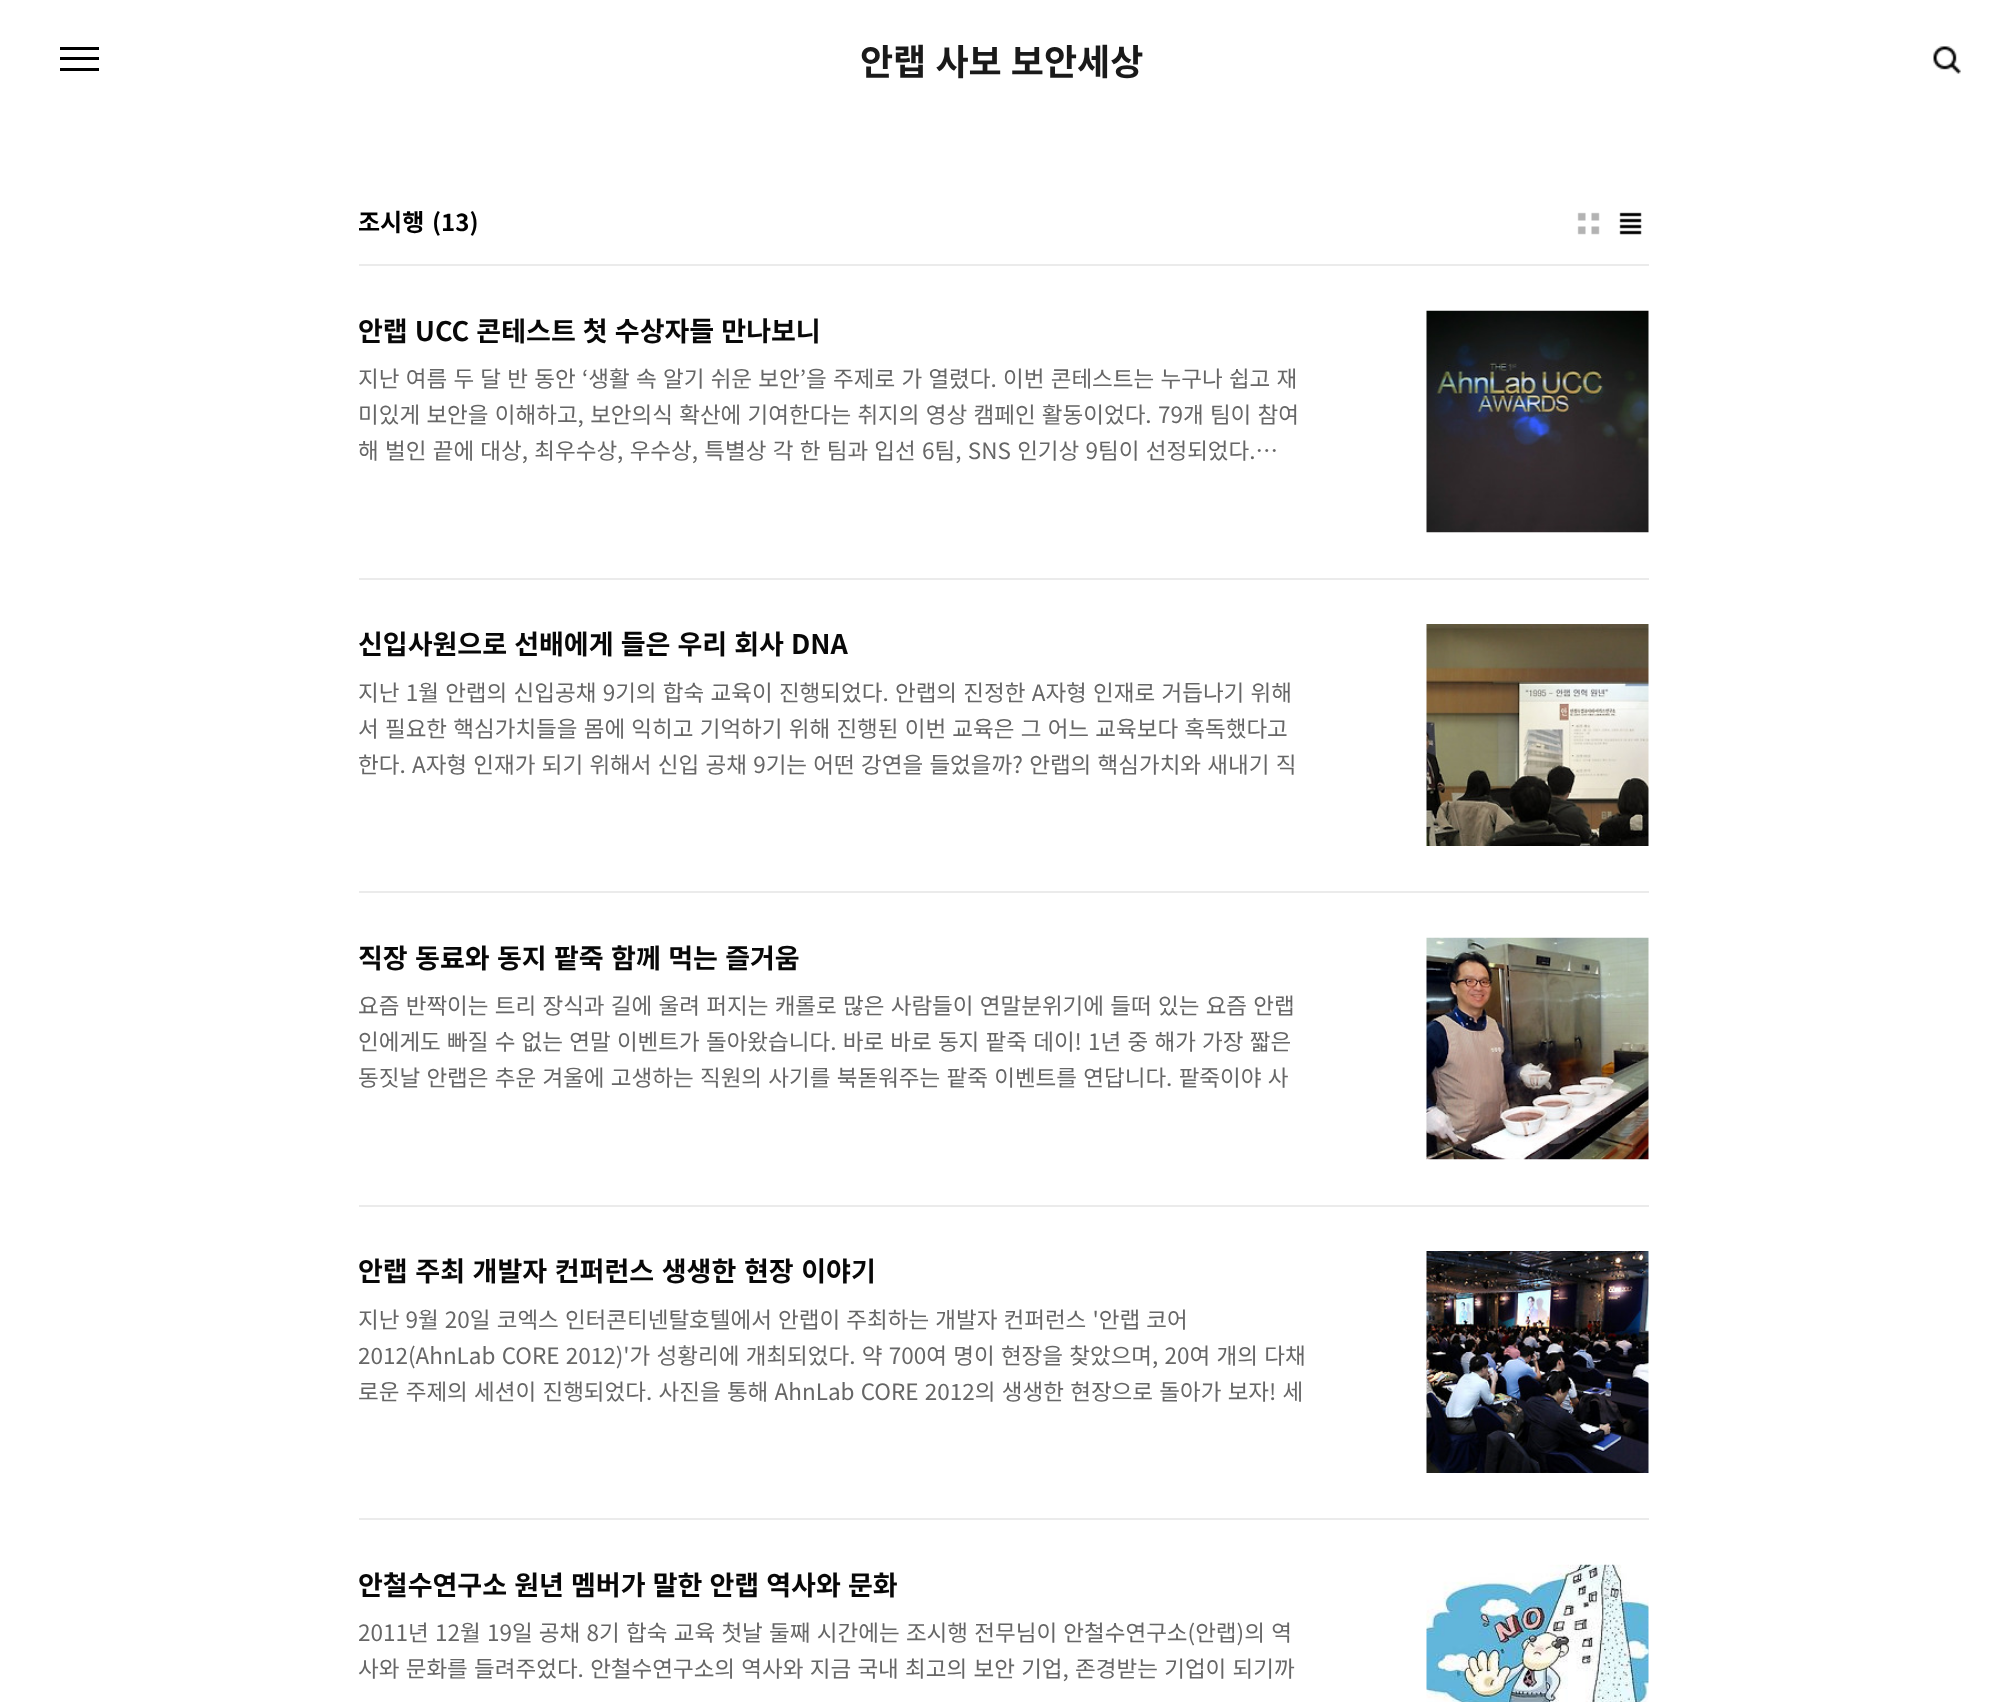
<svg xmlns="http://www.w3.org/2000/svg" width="2005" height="1702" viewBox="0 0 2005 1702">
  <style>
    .t1 { font: bold 36px Noto Sans KR; fill: #1a1a1a; }
    .t2 { font: bold 24px Noto Sans KR; fill: #000; }
    .t3 { font: bold 27px Noto Sans KR; fill: #080808; }
    .t4 { font: 22.5px Noto Sans KR; fill: #666; }
  </style>
  <defs>
    <clipPath id="clip1"><rect x="359" y="120" width="1290" height="144"/></clipPath>
    <clipPath id="clip2"><rect x="359" y="1301" width="948" height="108"/></clipPath>
    <clipPath id="clip3"><rect x="359" y="1614" width="948" height="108"/></clipPath>
  </defs>
  <rect width="100%" height="100%" fill="#fff"/>
  <rect x="60" y="47" width="39" height="3" fill="#000"/>
  <rect x="60" y="57" width="39" height="3" fill="#000"/>
  <rect x="60" y="68" width="39" height="3" fill="#000"/>
  <text x="860" y="75" word-spacing="1" class="t1">안랩 사보 보안세상</text>
  <image x="1933" y="46" width="28" height="28" href="images/1.png"/>
  <rect x="359" y="264" width="1290" height="2" fill="#ebebeb"/>
  <g clip-path="url(#clip1)">
    <text x="358" y="231" class="t2">조시행</text>
  </g>
  <text x="432" y="231" class="t2">(13)</text>
  <image x="1577" y="212" width="23" height="23" href="images/2.png"/>
  <image x="1619" y="212" width="23" height="23" href="images/3.png"/>
  <rect x="359" y="578" width="1290" height="2" fill="#ebebeb"/>
  <text x="358" y="341" word-spacing="1" class="t3">안랩 UCC 콘테스트 첫 수상자들 만나보니</text>
  <image x="1426" y="310" width="223" height="223" href="images/4.png"/>
  <text x="358" y="387" word-spacing="1.25" class="t4">지난 여름 두 달 반 동안 ‘생활 속 알기 쉬운 보안’을 주제로 가 열렸다. 이번 콘테스트는 누구나 쉽고 재</text>
  <text x="358" y="423" word-spacing="1.25" class="t4">미있게 보안을 이해하고, 보안의식 확산에 기여한다는 취지의 영상 캠페인 활동이었다. 79개 팀이 참여</text>
  <text x="358" y="459" word-spacing="1.25" class="t4">해 벌인 끝에 대상, 최우수상, 우수상, 특별상 각 한 팀과 입선 6팀, SNS 인기상 9팀이 선정되었다.…</text>
  <rect x="359" y="891" width="1290" height="2" fill="#ebebeb"/>
  <text x="358" y="654" word-spacing="1" class="t3">신입사원으로 선배에게 들은 우리 회사 DNA</text>
  <image x="1426" y="624" width="223" height="222" href="images/5.png"/>
  <text x="358" y="701" word-spacing="1.25" class="t4">지난 1월 안랩의 신입공채 9기의 합숙 교육이 진행되었다. 안랩의 진정한 A자형 인재로 거듭나기 위해</text>
  <text x="358" y="737" word-spacing="1.2" class="t4">서 필요한 핵심가치들을 몸에 익히고 기억하기 위해 진행된 이번 교육은 그 어느 교육보다 혹독했다고</text>
  <text x="358" y="773" word-spacing="1.25" class="t4">한다. A자형 인재가 되기 위해서 신입 공채 9기는 어떤 강연을 들었을까? 안랩의 핵심가치와 새내기 직</text>
  <rect x="359" y="1205" width="1290" height="2" fill="#ebebeb"/>
  <text x="358" y="968" word-spacing="1.25" class="t3">직장 동료와 동지 팥죽 함께 먹는 즐거움</text>
  <image x="1426" y="937" width="223" height="223" href="images/6.png"/>
  <text x="358" y="1014" word-spacing="1.25" class="t4">요즘 반짝이는 트리 장식과 길에 울려 퍼지는 캐롤로 많은 사람들이 연말분위기에 들떠 있는 요즘 안랩</text>
  <text x="358" y="1050" word-spacing="1.2" class="t4">인에게도 빠질 수 없는 연말 이벤트가 돌아왔습니다. 바로 바로 동지 팥죽 데이! 1년 중 해가 가장 짧은</text>
  <text x="358" y="1086" word-spacing="1.25" class="t4">동짓날 안랩은 추운 겨울에 고생하는 직원의 사기를 북돋워주는 팥죽 이벤트를 연답니다. 팥죽이야 사</text>
  <rect x="359" y="1518" width="1290" height="2" fill="#ebebeb"/>
  <text x="358" y="1281" word-spacing="1.5" class="t3">안랩 주최 개발자 컨퍼런스 생생한 현장 이야기</text>
  <image x="1426" y="1251" width="223" height="222" href="images/7.png"/>
  <text x="358" y="1328" word-spacing="1.1" class="t4">지난 9월 20일 코엑스 인터콘티넨탈호텔에서 안랩이 주최하는 개발자 컨퍼런스 '안랩 코어</text>
  <g clip-path="url(#clip2)">
    <text x="358" y="1364" word-spacing="1.25" class="t4">2012(AhnLab CORE 2012)'가 성황리에 개최되었다. 약 700여 명이 현장을 찾았으며, 20여 개의 다채</text>
  </g>
  <text x="358" y="1400" word-spacing="1.25" class="t4">로운 주제의 세션이 진행되었다. 사진을 통해 AhnLab CORE 2012의 생생한 현장으로 돌아가 보자! 세</text>
  <text x="358" y="1595" word-spacing="1" class="t3">안철수연구소 원년 멤버가 말한 안랩 역사와 문화</text>
  <image x="1426" y="1564" width="223" height="138" href="images/8.png"/>
  <g clip-path="url(#clip3)">
    <text x="358" y="1641" word-spacing="1.25" class="t4">2011년 12월 19일 공채 8기 합숙 교육 첫날 둘째 시간에는 조시행 전무님이 안철수연구소(안랩)의 역</text>
  </g>
  <text x="358" y="1677" word-spacing="1.25" class="t4">사와 문화를 들려주었다. 안철수연구소의 역사와 지금 국내 최고의 보안 기업, 존경받는 기업이 되기까</text>
</svg>
